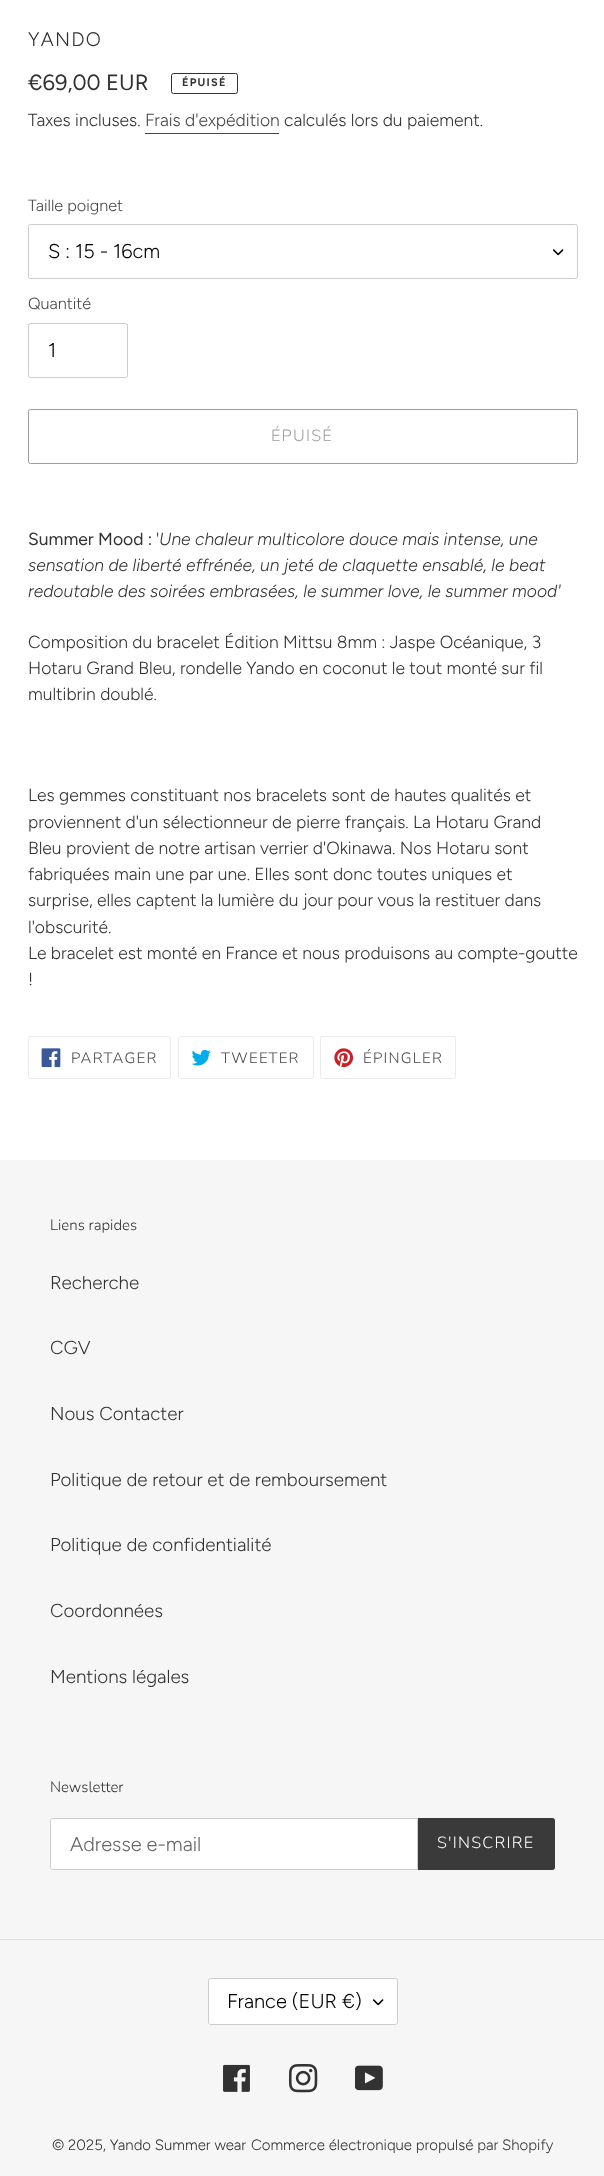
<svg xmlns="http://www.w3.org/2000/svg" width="604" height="2176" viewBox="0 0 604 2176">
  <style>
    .t1 { font: 300 19.5px Figtree; letter-spacing: 1.25px; fill: #333232; }
    .t2 { font: 22px Figtree; fill: #333232; }
    .t3 { font: bold 11px Figtree; letter-spacing: 1.25px; fill: #333232; }
    .t4 { font: 300 17.5px Figtree; fill: #333232; }
    .t5 { font: 300 17.5px Figtree; fill: #464646; }
    .t6 { font: 300 16.25px Figtree; fill: #464646; }
    .t7 { font: 300 20px Figtree; fill: #000; }
    .t8 { font: 300 16.25px Nunito; letter-spacing: 1.25px; fill: #9d9d9d; }
    .t9 { font: 17.5px Figtree; fill: #333232; }
    .t10 { font: italic 300 17.5px Figtree; fill: #333232; }
    .t11 { font: 300 15px Nunito; letter-spacing: 1.25px; fill: #464646; }
    .t12 { font: 300 15px Nunito; fill: #333232; }
    .t13 { font: 300 18.75px Figtree; fill: #333232; }
    .t14 { font: 300 20px Figtree; fill: #666; }
    .t15 { font: 300 16.25px Nunito; letter-spacing: 1.25px; fill: #fff; }
    .t16 { font: 300 15px Figtree; fill: #333232; }
  </style>
  <rect width="100%" height="100%" fill="#fff"/>
  <text x="28" y="46" class="t1">YANDO</text>
  <text x="28" y="90" class="t2">€69,00 EUR</text>
  <rect x="171.5" y="73.5" width="66" height="20" rx="2" fill="none" stroke="#333232"/>
  <text x="182" y="86" class="t3">ÉPUISÉ</text>
  <text x="28" y="126" class="t4">Taxes incluses.</text>
  <text x="145" y="126" class="t5">Frais d'expédition</text>
  <rect x="145" y="133" width="134" height="1" fill="#464646"/>
  <text x="284" y="126" class="t4">calculés lors du paiement.</text>
  <text x="28" y="211" class="t6">Taille poignet</text>
  <image x="553" y="249" width="11" height="7" href="images/1.png"/>
  <rect x="28.5" y="224.5" width="549" height="54" rx="2" fill="none" stroke="#ccc"/>
  <text x="48" y="258" class="t7">S : 15 - 16cm</text>
  <text x="28" y="309" class="t6">Quantité</text>
  <rect x="28.5" y="323.5" width="99" height="54" rx="2" fill="none" stroke="#ccc"/>
  <text x="48" y="357" class="t7">1</text>
  <rect x="28.5" y="409.5" width="549" height="54" rx="2" fill="none" stroke="#9d9d9d"/>
  <text x="271" y="441" class="t8">ÉPUISÉ</text>
  <text x="28" y="545" class="t9">Summer Mood :</text>
  <text x="156" y="545" class="t4">'</text>
  <text x="159" y="545" class="t10">Une chaleur multicolore douce mais intense, une</text>
  <text x="28" y="571" class="t10">sensation de liberté effrénée, un jeté de claquette ensablé, le beat</text>
  <text x="28" y="597" class="t10">redoutable des soirées embrasées, le summer love, le summer mood'</text>
  <text x="28" y="648" class="t4">Composition du bracelet Édition Mittsu 8mm : Jaspe Océanique, 3</text>
  <text x="28" y="674" class="t4">Hotaru Grand Bleu, rondelle Yando en coconut le tout monté sur fil</text>
  <text x="28" y="700" class="t4">multibrin doublé.</text>
  <text x="28" y="801" class="t4">Les gemmes constituant nos bracelets sont de hautes qualités et</text>
  <text x="28" y="828" class="t4">proviennent d'un sélectionneur de pierre français. La Hotaru Grand</text>
  <text x="28" y="854" class="t4">Bleu provient de notre artisan verrier d'Okinawa. Nos Hotaru sont</text>
  <text x="28" y="880" class="t4">fabriquées main une par une. Elles sont donc toutes uniques et</text>
  <text x="28" y="906" class="t4">surprise, elles captent la lumière du jour pour vous la restituer dans</text>
  <text x="28" y="933" class="t4">l'obscurité.</text>
  <text x="28" y="959" class="t4">Le bracelet est monté en France et nous produisons au compte-goutte</text>
  <text x="28" y="985" class="t4">!</text>
  <rect x="28.5" y="1036.5" width="142" height="42" rx="2" fill="none" stroke="#ebebeb"/>
  <image x="41" y="1048" width="20" height="20" href="images/2.png"/>
  <text x="71" y="1063" class="t11">PARTAGER</text>
  <rect x="178.5" y="1036.5" width="135" height="42" rx="2" fill="none" stroke="#ebebeb"/>
  <image x="191" y="1049" width="20" height="17" href="images/3.png"/>
  <text x="221" y="1063" class="t11">TWEETER</text>
  <rect x="320.5" y="1036.5" width="135" height="42" rx="2" fill="none" stroke="#ebebeb"/>
  <image x="334" y="1048" width="20" height="20" href="images/4.png"/>
  <text x="363" y="1063" class="t11">ÉPINGLER</text>
  <rect x="0" y="1160" width="604" height="1016" fill="#f6f6f6"/>
  <text x="50" y="1230" class="t12">Liens rapides</text>
  <text x="50" y="1289" class="t13">Recherche</text>
  <text x="50" y="1354" class="t13">CGV</text>
  <text x="50" y="1420" class="t13">Nous Contacter</text>
  <text x="50" y="1486" class="t13">Politique de retour et de remboursement</text>
  <text x="50" y="1551" class="t13">Politique de confidentialité</text>
  <text x="50" y="1617" class="t13">Coordonnées</text>
  <text x="50" y="1683" class="t13">Mentions légales</text>
  <text x="50" y="1792" class="t12">Newsletter</text>
  <path d="M52.5 1818.5H417.5V1869.5H52.5C51.5 1869.5 50.5 1868.5 50.5 1867.5V1820.5C50.5 1819.5 51.5 1818.5 52.5 1818.5Z" fill="#fff" stroke="#ccc"/>
  <text x="70" y="1851" class="t14">Adresse e-mail</text>
  <path d="M418 1818H552.5C554 1818 555 1819 555 1820.5V1867.5C555 1869 554 1870 552.5 1870H418Z" fill="#3a3a3a"/>
  <text x="437" y="1848" class="t15">S'INSCRIRE</text>
  <rect x="0" y="1939" width="604" height="1" fill="#ddd"/>
  <rect x="208" y="1978" width="190" height="47" rx="2.5" fill="#fff"/>
  <image x="373" y="1999" width="11" height="7" href="images/1.png"/>
  <rect x="208.5" y="1978.5" width="189" height="46" rx="2" fill="none" stroke="#ccc"/>
  <text x="227" y="2008" class="t7">France (EUR €)</text>
  <image x="223" y="2064" width="27" height="28" href="images/5.png"/>
  <image x="289" y="2064" width="29" height="29" href="images/6.png"/>
  <image x="355" y="2065" width="28" height="26" href="images/7.png"/>
  <text x="52" y="2150" class="t16">© 2025, Yando Summer wear</text>
  <text x="251" y="2150" class="t16">Commerce électronique propulsé par Shopify</text>
</svg>
